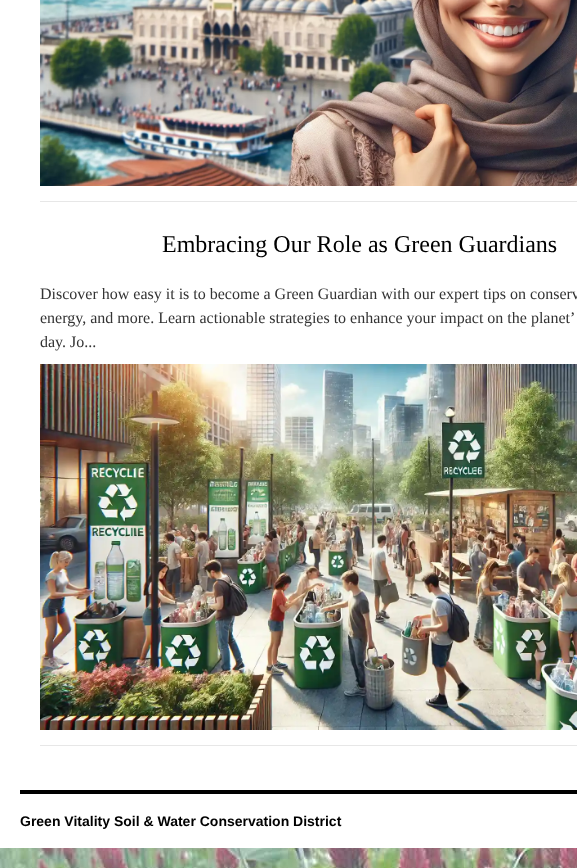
<svg xmlns="http://www.w3.org/2000/svg" width="577" height="868" viewBox="0 0 577 868">
  <style>
    .t1 { font: 24px Liberation Serif; fill: #000; }
    .t2 { font: 16px Liberation Serif; fill: #333; }
    .t3 { font: bold 14px Liberation Sans; fill: #000; }
  </style>
  <rect width="100%" height="100%" fill="#fff"/>
  <image x="0" y="848" width="577" height="20" href="images/1.png"/>
  <image x="40" y="0" width="537" height="186" href="images/2.png"/>
  <rect x="40" y="201" width="537" height="1" fill="#e7e7e7"/>
  <text x="162" y="252" class="t1">Embracing Our Role as Green Guardians</text>
  <text x="40" y="299" class="t2">Discover how easy it is to become a Green Guardian with our expert tips on conserv</text>
  <text x="40" y="323" class="t2">energy, and more. Learn actionable strategies to enhance your impact on the planet’</text>
  <text x="40" y="347" class="t2">day. Jo...</text>
  <image x="40" y="364" width="537" height="366" href="images/3.png"/>
  <rect x="40" y="745" width="537" height="1" fill="#e7e7e7"/>
  <rect x="20" y="790" width="557" height="4" fill="#000"/>
  <text x="20" y="826" class="t3">Green Vitality Soil &amp; Water Conservation District</text>
</svg>
